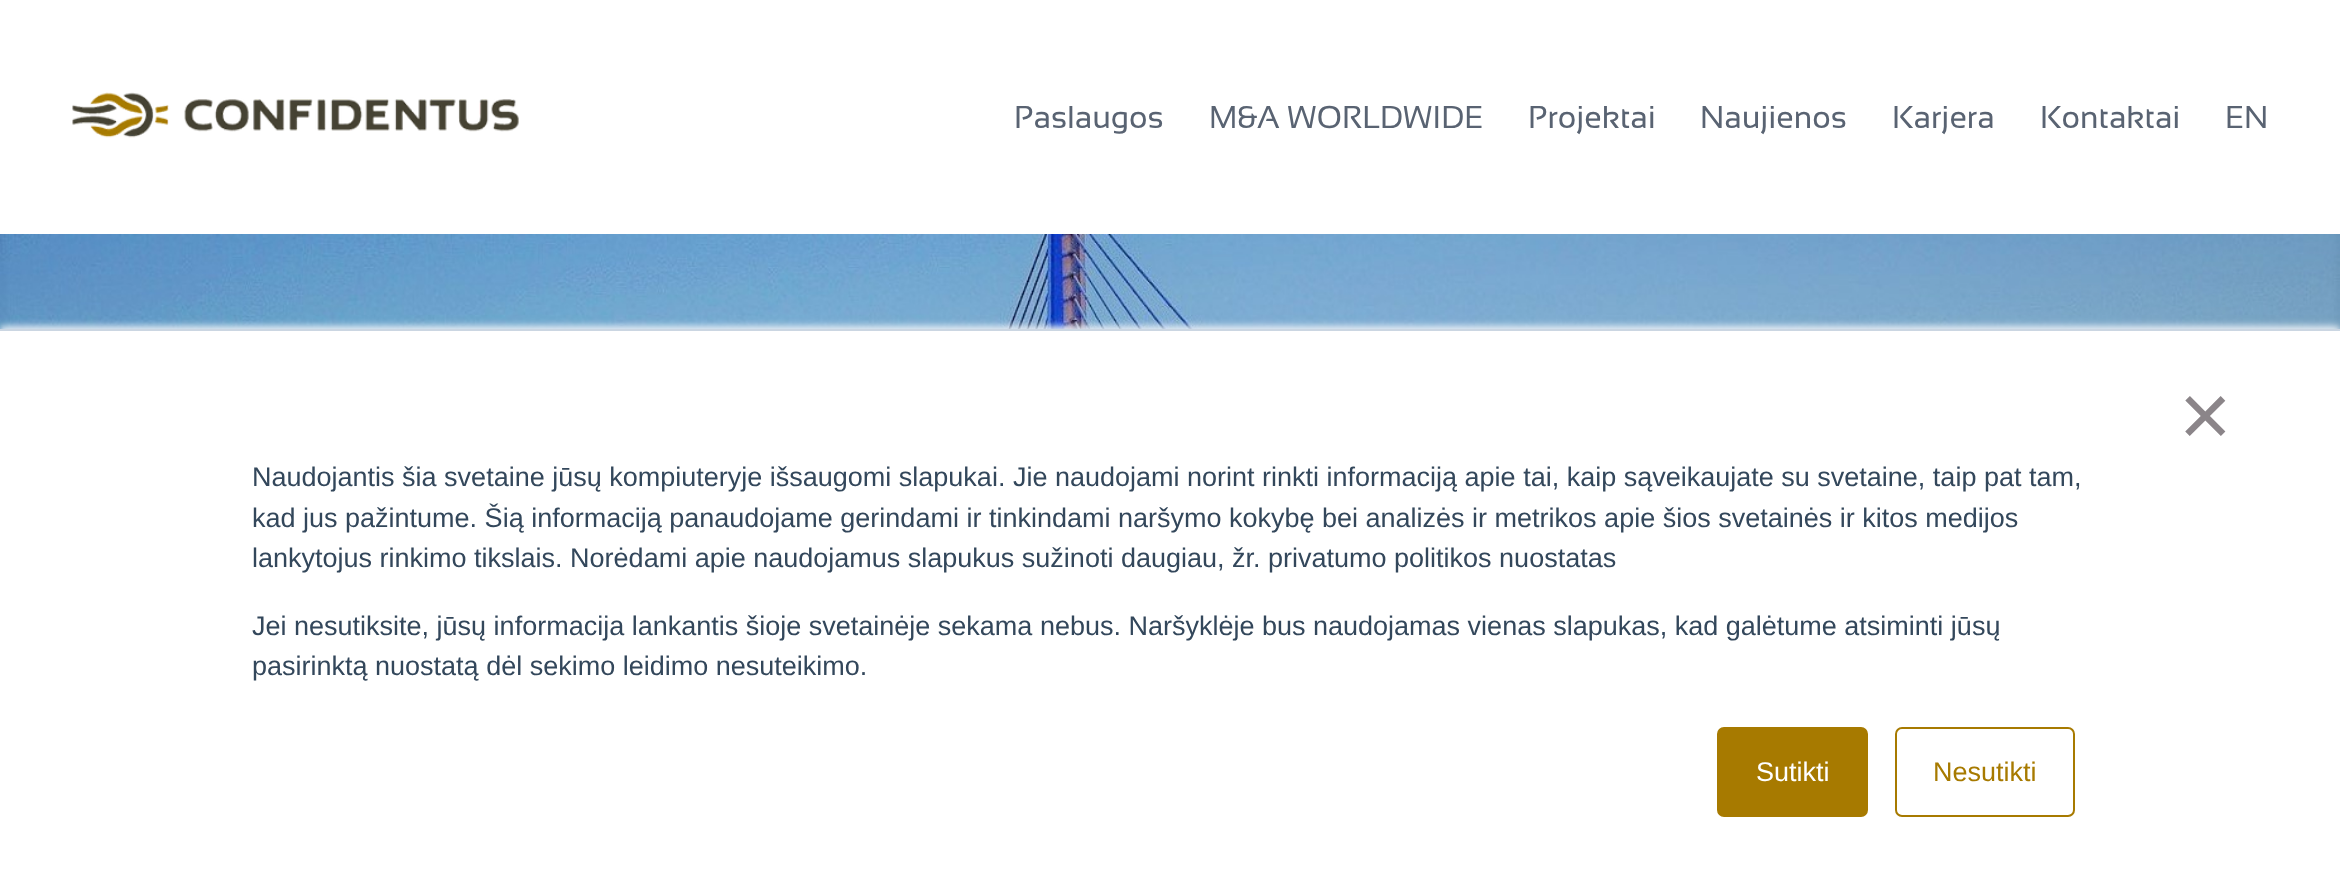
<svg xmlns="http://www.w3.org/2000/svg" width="2340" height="875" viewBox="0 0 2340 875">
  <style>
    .t1 { font: 31.5px Sansation; fill: #596372; }
    .t2 { font: 90px Liberation Sans; fill: #8b8589; }
    .t3 { font: 27px Liberation Sans; fill: #33475b; }
    .t4 { font: 27px Liberation Sans; fill: #fff; }
    .t5 { font: 27px Liberation Sans; fill: #a77a00; }
  </style>
  <rect width="100%" height="100%" fill="#fff"/>
  <image x="72" y="92" width="447" height="46" href="images/1.png"/>
  <text x="1014" y="128" class="t1">Paslaugos</text>
  <text x="1209" y="128" class="t1">M&amp;A WORLDWIDE</text>
  <text x="1528" y="128" class="t1">Projektai</text>
  <text x="1700" y="128" class="t1">Naujienos</text>
  <text x="1892" y="128" class="t1">Karjera</text>
  <text x="2040" y="128" class="t1">Kontaktai</text>
  <text x="2225" y="128" class="t1">EN</text>
  <image x="0" y="234" width="2340" height="95" href="images/2.png"/>
  <rect x="0" y="326" width="2340" height="547" fill="#eaf0f6" filter="blur(3.5px)"/>
  <rect x="0" y="331" width="2340" height="544" fill="#fff"/>
  <rect x="0" y="329" width="2340" height="2" fill="#cbd6e2"/>
  <text x="2179" y="446" class="t2">×</text>
  <text x="252" y="486" class="t3">Naudojantis šia svetaine jūsų kompiuteryje išsaugomi slapukai. Jie naudojami norint rinkti informaciją apie tai, kaip sąveikaujate su svetaine, taip pat tam,</text>
  <text x="252" y="527" class="t3">kad jus pažintume. Šią informaciją panaudojame gerindami ir tinkindami naršymo kokybę bei analizės ir metrikos apie šios svetainės ir kitos medijos</text>
  <text x="252" y="567" class="t3">lankytojus rinkimo tikslais. Norėdami apie naudojamus slapukus sužinoti daugiau, žr. privatumo politikos nuostatas</text>
  <text x="252" y="635" class="t3">Jei nesutiksite, jūsų informacija lankantis šioje svetainėje sekama nebus. Naršyklėje bus naudojamas vienas slapukas, kad galėtume atsiminti jūsų</text>
  <text x="252" y="675" class="t3">pasirinktą nuostatą dėl sekimo leidimo nesuteikimo.</text>
  <rect x="1718" y="728" width="149" height="88" rx="6" fill="#a77a00" stroke="#a77a00" stroke-width="2"/>
  <text x="1756" y="781" class="t4">Sutikti</text>
  <rect x="1896" y="728" width="178" height="88" rx="6" fill="none" stroke="#a77a00" stroke-width="2"/>
  <text x="1933" y="781" class="t5">Nesutikti</text>
</svg>
